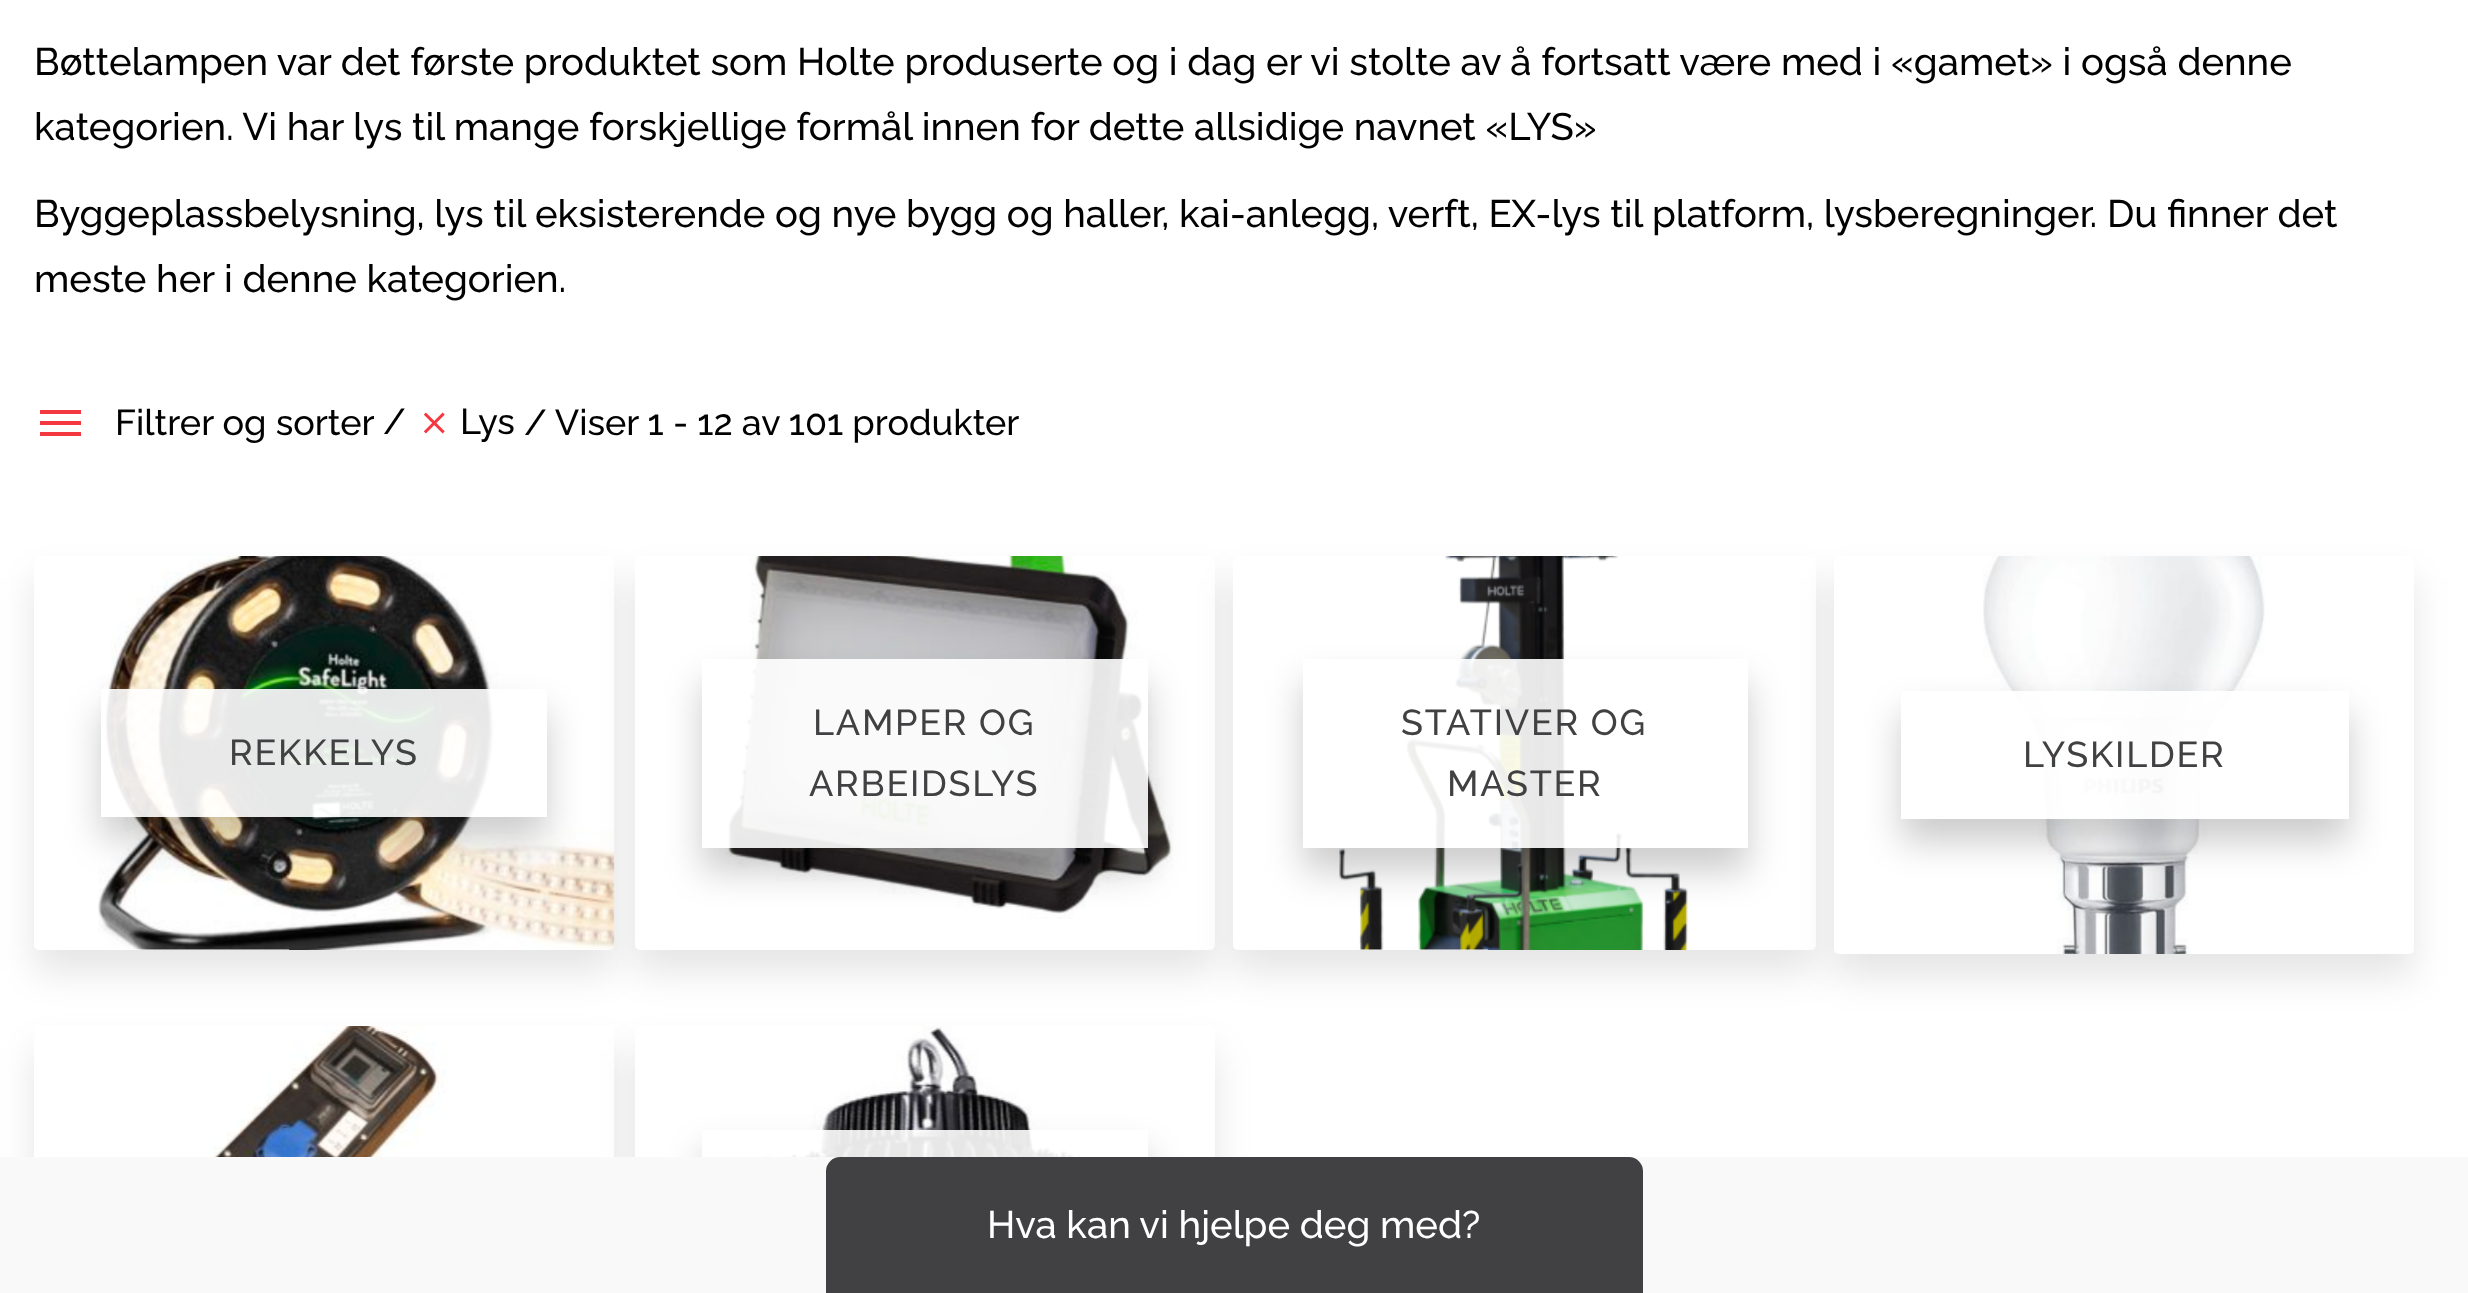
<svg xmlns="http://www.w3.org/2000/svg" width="2468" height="1293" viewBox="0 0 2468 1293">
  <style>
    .t1 { font: 100 38.25px Raleway; fill: #010101; }
    .t2 { font: 100 36px Raleway; fill: #010101; }
    .t3 { font: 100 36px Raleway; letter-spacing: 1.75px; fill: #414042; }
    .t4 { font: 100 38.25px Raleway; fill: #fff; }
  </style>
  <defs>
    <clipPath id="clip1"><path d="M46 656H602V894H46ZM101 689H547V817H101Z" clip-rule="evenodd"/></clipPath>
    <clipPath id="clip2"><path d="M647 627H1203V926H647ZM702 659H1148V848H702Z" clip-rule="evenodd"/></clipPath>
    <clipPath id="clip3"><path d="M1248 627H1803V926H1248ZM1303 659H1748V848H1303Z" clip-rule="evenodd"/></clipPath>
    <clipPath id="clip4"><path d="M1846 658H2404V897H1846ZM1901 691H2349V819H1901Z" clip-rule="evenodd"/></clipPath>
    <clipPath id="clip5"><path d="M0 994H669V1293H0ZM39 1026H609C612 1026 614 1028 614 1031V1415C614 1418 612 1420 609 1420H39C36 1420 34 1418 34 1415V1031C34 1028 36 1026 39 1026Z" clip-rule="evenodd"/></clipPath>
    <clipPath id="clip6"><path d="M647 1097H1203V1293H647ZM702 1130H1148V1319H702Z" clip-rule="evenodd"/></clipPath>
  </defs>
  <rect width="100%" height="100%" fill="#fff"/>
  <text x="34" y="75" class="t1">Bøttelampen var det første produktet som Holte produserte og i dag er vi stolte av å fortsatt være med i «gamet» i også denne</text>
  <text x="34" y="140" class="t1">kategorien. Vi har lys til mange forskjellige formål innen for dette allsidige navnet «LYS»</text>
  <text x="34" y="227" class="t1">Byggeplassbelysning, lys til eksisterende og nye bygg og haller, kai-anlegg, verft, EX-lys til platform, lysberegninger. Du finner det</text>
  <text x="34" y="292" class="t1">meste her i denne kategorien.</text>
  <path d="M40 436V432H81V436ZM40 425V421H81V425ZM40 410H81V414H40Z" fill="#f43840"/>
  <text x="115" y="435" class="t2">Filtrer og sorter</text>
  <text x="383" y="434" class="t2">/</text>
  <image x="423" y="412" width="22" height="22" href="images/1.png"/>
  <text x="460" y="434" class="t2">Lys</text>
  <text x="524" y="435" class="t2">/ Viser 1 - 12 av 101 produkter</text>
  <rect x="34" y="578" width="580" height="394" rx="5" fill="#0000001a" filter="blur(18px)"/>
  <rect x="34" y="556" width="580" height="394" rx="5" fill="#fff"/>
  <image x="98" y="556" width="517" height="394" href="images/2.png"/>
  <g clip-path="url(#clip1)">
    <rect x="101" y="711" width="446" height="128" fill="#00000033" filter="blur(18px)"/>
  </g>
  <rect x="101" y="689" width="446" height="128" fill="#ffffffe6"/>
  <text x="229" y="765" class="t3">REKKELYS</text>
  <rect x="635" y="578" width="580" height="394" rx="5" fill="#0000001a" filter="blur(18px)"/>
  <rect x="635" y="556" width="580" height="394" rx="5" fill="#fff"/>
  <image x="725" y="556" width="448" height="363" href="images/3.png"/>
  <g clip-path="url(#clip2)">
    <rect x="702" y="682" width="446" height="189" fill="#00000033" filter="blur(18px)"/>
  </g>
  <rect x="702" y="659" width="446" height="189" fill="#ffffffe6"/>
  <text x="813" y="735" class="t3">LAMPER OG</text>
  <text x="809" y="796" class="t3">ARBEIDSLYS</text>
  <rect x="1233" y="578" width="583" height="394" rx="5" fill="#0000001a" filter="blur(18px)"/>
  <rect x="1233" y="556" width="583" height="394" rx="5" fill="#fff"/>
  <image x="1339" y="556" width="349" height="394" href="images/4.png"/>
  <g clip-path="url(#clip3)">
    <rect x="1303" y="682" width="445" height="189" fill="#00000033" filter="blur(18px)"/>
  </g>
  <rect x="1303" y="659" width="445" height="189" fill="#ffffffe6"/>
  <text x="1401" y="735" class="t3">STATIVER OG</text>
  <text x="1447" y="796" class="t3">MASTER</text>
  <rect x="1834" y="578" width="580" height="399" rx="5" fill="#0000001a" filter="blur(18px)"/>
  <rect x="1834" y="556" width="580" height="398" rx="5" fill="#fff"/>
  <image x="1983" y="556" width="282" height="398" href="images/5.png"/>
  <g clip-path="url(#clip4)">
    <rect x="1901" y="713" width="448" height="129" fill="#00000033" filter="blur(18px)"/>
  </g>
  <rect x="1911" y="691" width="438" height="128" fill="#ffffffe6"/>
  <text x="2023" y="767" class="t3">LYSKILDER</text>
  <g clip-path="url(#clip5)">
    <rect x="34" y="1049" width="580" height="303" rx="5" fill="#0000001a" filter="blur(18px)"/>
  </g>
  <image x="137" y="1026" width="478" height="131" href="images/6.png"/>
  <rect x="635" y="1049" width="580" height="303" rx="5" fill="#0000001a" filter="blur(18px)"/>
  <rect x="635" y="1026" width="580" height="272" rx="5" fill="#fff"/>
  <image x="666" y="1026" width="524" height="131" href="images/7.png"/>
  <g clip-path="url(#clip6)">
    <rect x="702" y="1152" width="446" height="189" fill="#00000033" filter="blur(18px)"/>
  </g>
  <rect x="772" y="1130" width="376" height="27" fill="#ffffffe6"/>
  <rect x="0" y="1157" width="2468" height="136" fill="#f9f9f9"/>
  <path d="M840 1158H1629C1636 1158 1642 1164 1642 1171V1293H827V1171C827 1164 833 1158 840 1158Z" fill="#414042" stroke="#414042" stroke-width="2"/>
  <text x="987" y="1238" class="t4">Hva kan vi hjelpe deg med?</text>
</svg>
